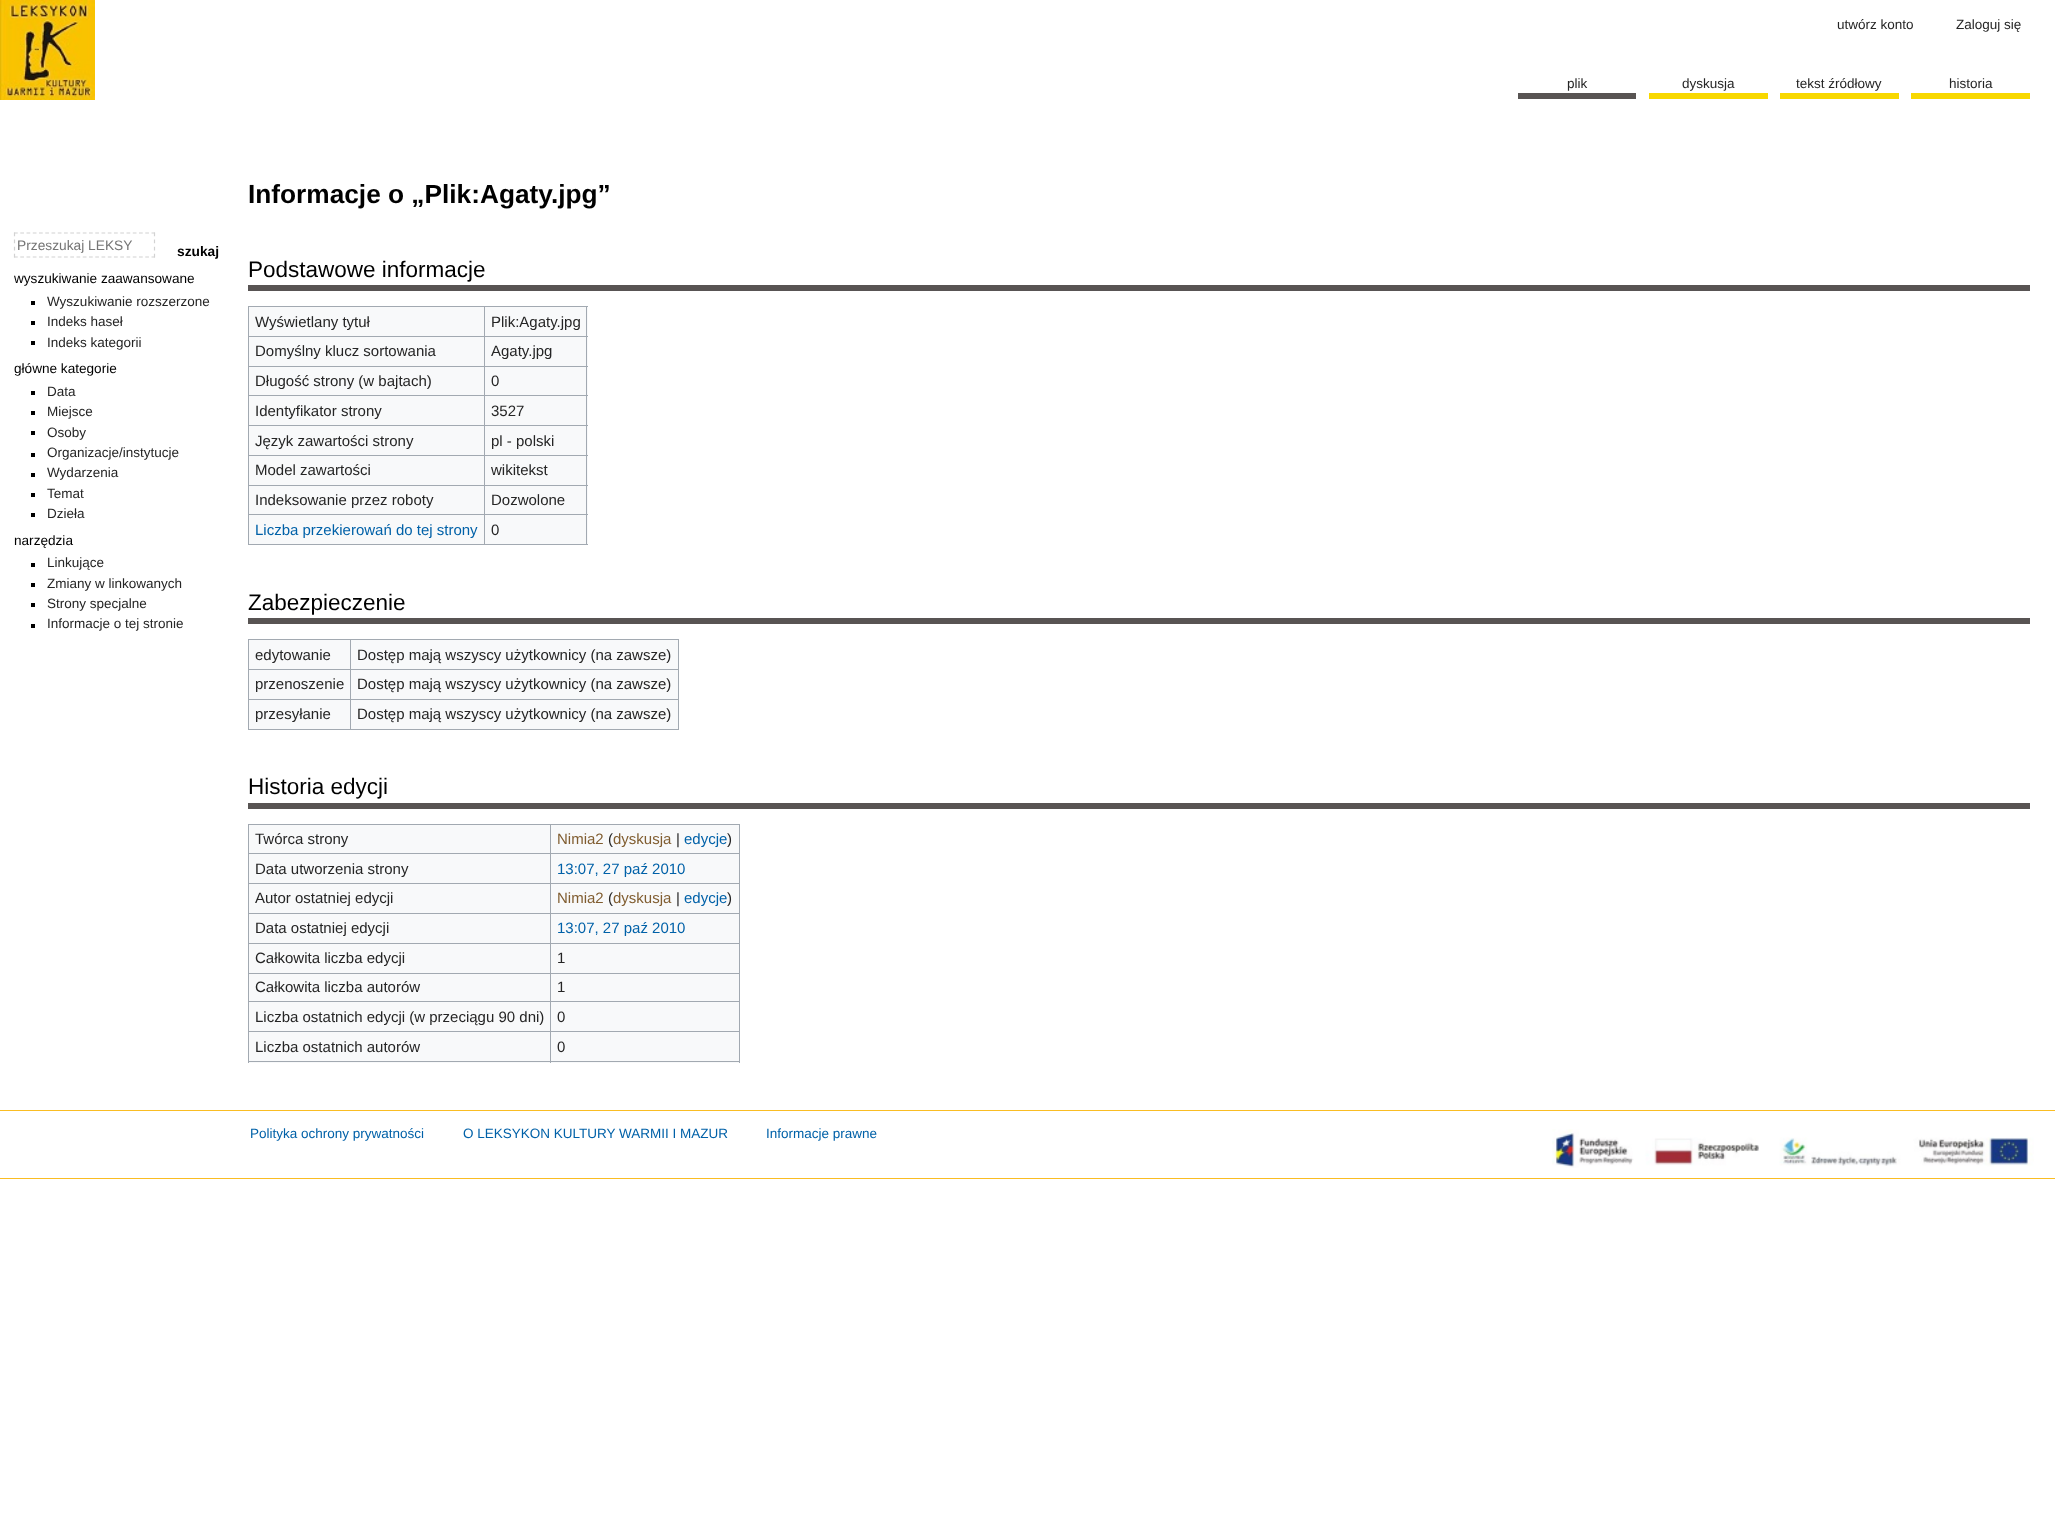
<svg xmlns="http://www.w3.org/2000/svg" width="2055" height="1537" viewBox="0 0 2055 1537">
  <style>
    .t1 { font: 13.5px Liberation Sans; fill: #252525; }
    .t2 { font: 13.75px Liberation Sans; fill: #757575; }
    .t3 { font: bold 13.75px Liberation Sans; fill: #000; }
    .t4 { font: 13.6px Liberation Sans; fill: #000; }
    .t5 { font: bold 26.25px Liberation Sans; fill: #000; }
    .t6 { font: 22.5px Liberation Sans; fill: #000; }
    .t7 { font: 15px Liberation Sans; fill: #252525; }
    .t8 { font: 15px Liberation Sans; fill: #0061a8; }
    .t9 { font: 15px Liberation Sans; fill: #805d30; }
    .t10 { font: 13.5px Liberation Sans; fill: #0061a8; }
  </style>
  <rect width="100%" height="100%" fill="#fff"/>
  <image x="0" y="0" width="95" height="100" href="images/1.png"/>
  <text x="1837" y="29" class="t1">utwórz konto</text>
  <text x="1956" y="29" class="t1">Zaloguj się</text>
  <rect x="1518" y="93" width="118" height="6" fill="#585453"/>
  <text x="1567" y="88" class="t1">plik</text>
  <rect x="1649" y="93" width="119" height="6" fill="#f8d800"/>
  <text x="1682" y="88" class="t1">dyskusja</text>
  <rect x="1780" y="93" width="119" height="6" fill="#f8d800"/>
  <text x="1796" y="88" class="t1">tekst źródłowy</text>
  <rect x="1911" y="93" width="119" height="6" fill="#f8d800"/>
  <text x="1949" y="88" class="t1">historia</text>
  <path d="M14 233H155" fill="none" stroke="#d2d2d2" stroke-width="1.2" stroke-dasharray="3.75 2.5"/>
  <path d="M154.5 232.5V257.5" fill="none" stroke="#d2d2d2" stroke-width="1.2" stroke-dasharray="3.75 3.34"/>
  <path d="M14 257H155" fill="none" stroke="#d2d2d2" stroke-width="1.2" stroke-dasharray="3.75 2.5"/>
  <path d="M14.5 232.5V257.5" fill="none" stroke="#d2d2d2" stroke-width="1.2" stroke-dasharray="3.75 3.34"/>
  <text x="17" y="250" class="t2">Przeszukaj LEKSY</text>
  <text x="177" y="256" class="t3">szukaj</text>
  <text x="14" y="283" class="t4">wyszukiwanie zaawansowane</text>
  <rect x="31" y="301" width="4" height="4" fill="#000"/>
  <text x="47" y="306" class="t1">Wyszukiwanie rozszerzone</text>
  <rect x="31" y="321" width="4" height="4" fill="#000"/>
  <text x="47" y="326" class="t1">Indeks haseł</text>
  <rect x="31" y="341" width="4" height="4" fill="#000"/>
  <text x="47" y="347" class="t1">Indeks kategorii</text>
  <text x="14" y="373" class="t4">główne kategorie</text>
  <rect x="31" y="391" width="4" height="4" fill="#000"/>
  <text x="47" y="396" class="t1">Data</text>
  <rect x="31" y="411" width="4" height="4" fill="#000"/>
  <text x="47" y="416" class="t1">Miejsce</text>
  <rect x="31" y="431" width="4" height="4" fill="#000"/>
  <text x="47" y="437" class="t1">Osoby</text>
  <rect x="31" y="453" width="4" height="4" fill="#000"/>
  <text x="47" y="457" class="t1">Organizacje/instytucje</text>
  <rect x="31" y="473" width="4" height="4" fill="#000"/>
  <text x="47" y="477" class="t1">Wydarzenia</text>
  <rect x="31" y="493" width="4" height="4" fill="#000"/>
  <text x="47" y="498" class="t1">Temat</text>
  <rect x="31" y="513" width="4" height="4" fill="#000"/>
  <text x="47" y="518" class="t1">Dzieła</text>
  <text x="14" y="545" class="t4">narzędzia</text>
  <rect x="31" y="563" width="4" height="4" fill="#000"/>
  <text x="47" y="567" class="t1">Linkujące</text>
  <rect x="31" y="583" width="4" height="4" fill="#000"/>
  <text x="47" y="588" class="t1">Zmiany w linkowanych</text>
  <rect x="31" y="603" width="4" height="4" fill="#000"/>
  <text x="47" y="608" class="t1">Strony specjalne</text>
  <rect x="31" y="624" width="4" height="4" fill="#000"/>
  <text x="47" y="628" class="t1">Informacje o tej stronie</text>
  <text x="248" y="203" class="t5">Informacje o „Plik:Agaty.jpg”</text>
  <rect x="248" y="285" width="1782" height="6" fill="#585453"/>
  <text x="248" y="277" class="t6">Podstawowe informacje</text>
  <rect x="249" y="307" width="339" height="237" fill="#f8f9fa"/>
  <rect x="248" y="306" width="340" height="1" fill="#a2a9b1"/>
  <rect x="586" y="306" width="1" height="239" fill="#a2a9b1"/>
  <rect x="248" y="544" width="340" height="1" fill="#a2a9b1"/>
  <rect x="248" y="306" width="1" height="239" fill="#a2a9b1"/>
  <text x="255" y="327" class="t7">Wyświetlany tytuł</text>
  <rect x="484" y="336" width="104" height="1" fill="#a2a9b1"/>
  <rect x="484" y="366" width="104" height="1" fill="#a2a9b1"/>
  <rect x="484" y="395" width="104" height="1" fill="#a2a9b1"/>
  <rect x="484" y="425" width="104" height="1" fill="#a2a9b1"/>
  <rect x="484" y="455" width="104" height="1" fill="#a2a9b1"/>
  <rect x="484" y="485" width="104" height="1" fill="#a2a9b1"/>
  <rect x="484" y="514" width="104" height="1" fill="#a2a9b1"/>
  <rect x="484" y="514" width="1" height="31" fill="#a2a9b1"/>
  <rect x="248" y="514" width="237" height="1" fill="#a2a9b1"/>
  <rect x="484" y="485" width="1" height="30" fill="#a2a9b1"/>
  <rect x="248" y="485" width="237" height="1" fill="#a2a9b1"/>
  <rect x="484" y="455" width="1" height="31" fill="#a2a9b1"/>
  <rect x="248" y="455" width="237" height="1" fill="#a2a9b1"/>
  <rect x="484" y="425" width="1" height="31" fill="#a2a9b1"/>
  <rect x="248" y="425" width="237" height="1" fill="#a2a9b1"/>
  <rect x="484" y="395" width="1" height="31" fill="#a2a9b1"/>
  <rect x="248" y="395" width="237" height="1" fill="#a2a9b1"/>
  <rect x="484" y="366" width="1" height="30" fill="#a2a9b1"/>
  <rect x="248" y="366" width="237" height="1" fill="#a2a9b1"/>
  <rect x="484" y="336" width="1" height="32" fill="#a2a9b1"/>
  <rect x="248" y="336" width="237" height="1" fill="#a2a9b1"/>
  <rect x="484" y="306" width="1" height="32" fill="#a2a9b1"/>
  <text x="491" y="327" class="t7">Plik:Agaty.jpg</text>
  <text x="255" y="356" class="t7">Domyślny klucz sortowania</text>
  <text x="491" y="356" class="t7">Agaty.jpg</text>
  <text x="255" y="386" class="t7">Długość strony (w bajtach)</text>
  <text x="491" y="386" class="t7">0</text>
  <text x="255" y="416" class="t7">Identyfikator strony</text>
  <text x="491" y="416" class="t7">3527</text>
  <text x="255" y="446" class="t7">Język zawartości strony</text>
  <text x="491" y="446" class="t7">pl - polski</text>
  <text x="255" y="475" class="t7">Model zawartości</text>
  <text x="491" y="475" class="t7">wikitekst</text>
  <text x="255" y="505" class="t7">Indeksowanie przez roboty</text>
  <text x="491" y="505" class="t7">Dozwolone</text>
  <text x="255" y="535" class="t8">Liczba przekierowań do tej strony</text>
  <text x="491" y="535" class="t7">0</text>
  <rect x="248" y="618" width="1782" height="6" fill="#585453"/>
  <text x="248" y="610" class="t6">Zabezpieczenie</text>
  <rect x="249" y="640" width="429" height="89" fill="#f8f9fa"/>
  <rect x="248" y="639" width="431" height="1" fill="#a2a9b1"/>
  <rect x="678" y="639" width="1" height="91" fill="#a2a9b1"/>
  <rect x="248" y="729" width="431" height="1" fill="#a2a9b1"/>
  <rect x="248" y="639" width="1" height="91" fill="#a2a9b1"/>
  <text x="255" y="660" class="t7">edytowanie</text>
  <rect x="350" y="669" width="329" height="1" fill="#a2a9b1"/>
  <rect x="350" y="699" width="329" height="1" fill="#a2a9b1"/>
  <rect x="350" y="699" width="1" height="31" fill="#a2a9b1"/>
  <rect x="248" y="699" width="103" height="1" fill="#a2a9b1"/>
  <rect x="350" y="669" width="1" height="31" fill="#a2a9b1"/>
  <rect x="248" y="669" width="103" height="1" fill="#a2a9b1"/>
  <rect x="350" y="639" width="1" height="31" fill="#a2a9b1"/>
  <text x="357" y="660" class="t7">Dostęp mają wszyscy użytkownicy (na zawsze)</text>
  <text x="255" y="689" class="t7">przenoszenie</text>
  <text x="357" y="689" class="t7">Dostęp mają wszyscy użytkownicy (na zawsze)</text>
  <text x="255" y="719" class="t7">przesyłanie</text>
  <text x="357" y="719" class="t7">Dostęp mają wszyscy użytkownicy (na zawsze)</text>
  <rect x="248" y="803" width="1782" height="6" fill="#585453"/>
  <text x="248" y="794" class="t6">Historia edycji</text>
  <rect x="249" y="825" width="490" height="238" fill="#f8f9fa"/>
  <rect x="248" y="824" width="492" height="1" fill="#a2a9b1"/>
  <rect x="739" y="824" width="1" height="239" fill="#a2a9b1"/>
  <rect x="248" y="1061" width="492" height="1" fill="#a2a9b1"/>
  <rect x="248" y="824" width="1" height="239" fill="#a2a9b1"/>
  <text x="255" y="844" class="t7">Twórca strony</text>
  <rect x="550" y="853" width="190" height="1" fill="#a2a9b1"/>
  <rect x="550" y="883" width="190" height="1" fill="#a2a9b1"/>
  <rect x="550" y="913" width="190" height="1" fill="#a2a9b1"/>
  <rect x="550" y="943" width="190" height="1" fill="#a2a9b1"/>
  <rect x="550" y="973" width="190" height="1" fill="#a2a9b1"/>
  <rect x="550" y="1001" width="190" height="1" fill="#a2a9b1"/>
  <rect x="550" y="1031" width="190" height="1" fill="#a2a9b1"/>
  <rect x="550" y="1031" width="1" height="32" fill="#a2a9b1"/>
  <rect x="248" y="1031" width="303" height="1" fill="#a2a9b1"/>
  <rect x="550" y="1001" width="1" height="32" fill="#a2a9b1"/>
  <rect x="248" y="1001" width="303" height="1" fill="#a2a9b1"/>
  <rect x="550" y="973" width="1" height="30" fill="#a2a9b1"/>
  <rect x="248" y="973" width="303" height="1" fill="#a2a9b1"/>
  <rect x="550" y="943" width="1" height="31" fill="#a2a9b1"/>
  <rect x="248" y="943" width="303" height="1" fill="#a2a9b1"/>
  <rect x="550" y="913" width="1" height="31" fill="#a2a9b1"/>
  <rect x="248" y="913" width="303" height="1" fill="#a2a9b1"/>
  <rect x="550" y="883" width="1" height="31" fill="#a2a9b1"/>
  <rect x="248" y="883" width="303" height="1" fill="#a2a9b1"/>
  <rect x="550" y="853" width="1" height="31" fill="#a2a9b1"/>
  <rect x="248" y="853" width="303" height="1" fill="#a2a9b1"/>
  <rect x="550" y="824" width="1" height="30" fill="#a2a9b1"/>
  <text x="557" y="844" class="t9">Nimia2</text>
  <text x="608" y="844" class="t7">(</text>
  <text x="613" y="844" class="t9">dyskusja</text>
  <text x="676" y="844" class="t7">|</text>
  <text x="684" y="844" class="t8">edycje</text>
  <text x="727" y="844" class="t7">)</text>
  <text x="255" y="874" class="t7">Data utworzenia strony</text>
  <text x="557" y="874" class="t8">13:07, 27 paź 2010</text>
  <text x="255" y="903" class="t7">Autor ostatniej edycji</text>
  <text x="557" y="903" class="t9">Nimia2</text>
  <text x="608" y="903" class="t7">(</text>
  <text x="613" y="903" class="t9">dyskusja</text>
  <text x="676" y="903" class="t7">|</text>
  <text x="684" y="903" class="t8">edycje</text>
  <text x="727" y="903" class="t7">)</text>
  <text x="255" y="933" class="t7">Data ostatniej edycji</text>
  <text x="557" y="933" class="t8">13:07, 27 paź 2010</text>
  <text x="255" y="963" class="t7">Całkowita liczba edycji</text>
  <text x="557" y="963" class="t7">1</text>
  <text x="255" y="992" class="t7">Całkowita liczba autorów</text>
  <text x="557" y="992" class="t7">1</text>
  <text x="255" y="1022" class="t7">Liczba ostatnich edycji (w przeciągu 90 dni)</text>
  <text x="557" y="1022" class="t7">0</text>
  <text x="255" y="1052" class="t7">Liczba ostatnich autorów</text>
  <text x="557" y="1052" class="t7">0</text>
  <rect x="0" y="1110" width="2055" height="1" fill="#fabd23"/>
  <rect x="0" y="1178" width="2055" height="1" fill="#fabd23"/>
  <text x="250" y="1138" class="t10">Polityka ochrony prywatności</text>
  <text x="463" y="1138" class="t10">O LEKSYKON KULTURY WARMII I MAZUR</text>
  <text x="766" y="1138" class="t10">Informacje prawne</text>
  <image x="1552" y="1129" width="482" height="39" href="images/2.png"/>
</svg>
